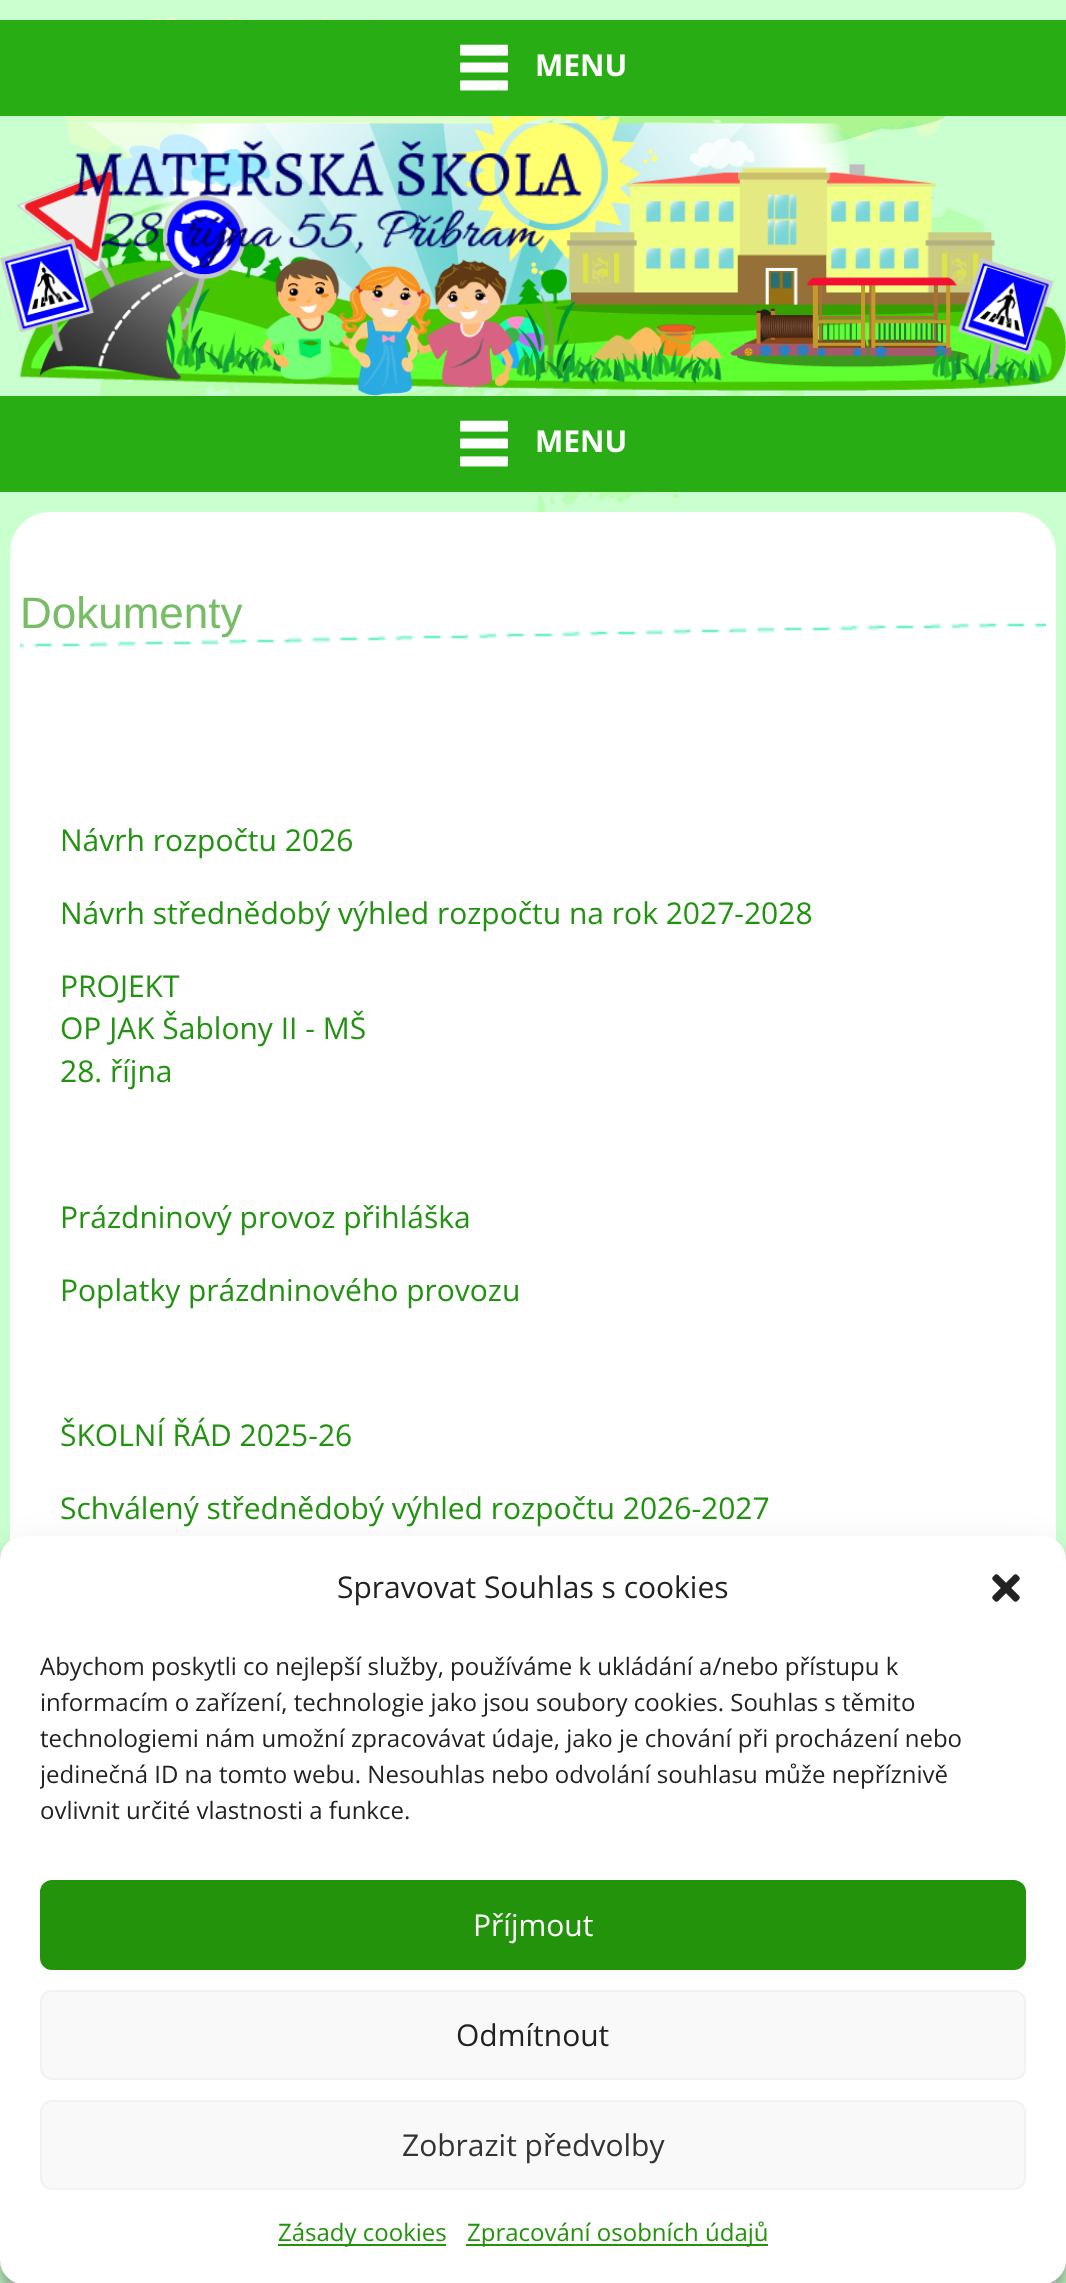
<svg xmlns="http://www.w3.org/2000/svg" width="1066" height="2283" viewBox="0 0 1066 2283">
  <style>
    .t1 { font: bold 30px Open Sans; fill: #fff; }
    .t2 { font: 44px Liberation Sans; fill: #77bd65; }
    .t3 { font: 30px Open Sans; fill: #229211; }
    .t4 { font: 30px Open Sans; fill: #222; }
    .t5 { font: 24px Open Sans; fill: #222; }
    .t6 { font: 30px Open Sans; fill: #fff; }
    .t7 { font: 30px Open Sans; fill: #333; }
    .t8 { font: 24px Open Sans; fill: #22930b; }
  </style>
  <defs>
    <clipPath id="clip1"><rect x="40" y="1650" width="986" height="190"/></clipPath>
  </defs>
  <rect width="100%" height="100%" fill="#fff"/>
  <image x="0" y="0" width="1066" height="2283" href="images/1.png"/>
  <rect x="0" y="20" width="1066" height="96" fill="#29ad14"/>
  <image x="460" y="44" width="48" height="47" href="images/2.png"/>
  <text x="535" y="76" class="t1">MENU</text>
  <image x="0" y="116" width="1066" height="280" href="images/3.png"/>
  <image x="74" y="140" width="508" height="128" href="images/4.png"/>
  <rect x="0" y="396" width="1066" height="96" fill="#29ad14"/>
  <image x="460" y="420" width="48" height="47" href="images/2.png"/>
  <text x="535" y="452" class="t1">MENU</text>
  <rect x="10" y="512" width="1046" height="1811" rx="40" fill="#fff"/>
  <image x="20" y="623" width="1026" height="26" href="images/5.png"/>
  <text x="20" y="628" class="t2">Dokumenty</text>
  <text x="60" y="851" class="t3">Návrh rozpočtu 2026</text>
  <text x="60" y="924" class="t3">Návrh střednědobý výhled rozpočtu na rok 2027-2028</text>
  <text x="60" y="997" class="t3">PROJEKT</text>
  <text x="60" y="1039" class="t3">OP JAK Šablony II - MŠ</text>
  <text x="60" y="1082" class="t3">28. října</text>
  <text x="60" y="1228" class="t3">Prázdninový provoz přihláška</text>
  <text x="60" y="1301" class="t3">Poplatky prázdninového provozu</text>
  <text x="60" y="1446" class="t3">ŠKOLNÍ ŘÁD 2025-26</text>
  <text x="60" y="1519" class="t3">Schválený střednědobý výhled rozpočtu 2026-2027</text>
  <rect x="0" y="1548" width="1066" height="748" rx="24" fill="#0000003b" filter="blur(6px)"/>
  <rect x="0" y="1556" width="1066" height="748" rx="24" fill="#00000030" filter="blur(20px)"/>
  <rect x="926" y="2136" width="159" height="120" rx="4" fill="#808080" filter="blur(5px)"/>
  <rect x="0" y="1536" width="1066" height="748" rx="24" fill="#fff"/>
  <text x="337" y="1598" class="t4">Spravovat Souhlas s cookies</text>
  <image x="992" y="1574" width="28" height="28" href="images/6.png"/>
  <text x="40" y="1675" class="t5">Abychom poskytli co nejlepší služby, používáme k ukládání a/nebo přístupu k</text>
  <text x="40" y="1711" class="t5">informacím o zařízení, technologie jako jsou soubory cookies. Souhlas s těmito</text>
  <text x="40" y="1747" class="t5">technologiemi nám umožní zpracovávat údaje, jako je chování při procházení nebo</text>
  <g clip-path="url(#clip1)">
    <text x="40" y="1783" class="t5">jedinečná ID na tomto webu. Nesouhlas nebo odvolání souhlasu může nepříznivě</text>
  </g>
  <text x="40" y="1819" class="t5">ovlivnit určité vlastnosti a funkce.</text>
  <rect x="41" y="1881" width="984" height="88" rx="11" fill="#22930b" stroke="#22930b" stroke-width="2"/>
  <text x="473" y="1936" class="t6">Příjmout</text>
  <rect x="41" y="1991" width="984" height="88" rx="11" fill="#f9f9f9" stroke="#f2f2f2" stroke-width="2"/>
  <text x="456" y="2046" class="t4">Odmítnout</text>
  <rect x="41" y="2101" width="984" height="88" rx="11" fill="#f9f9f9" stroke="#f2f2f2" stroke-width="2"/>
  <text x="402" y="2156" class="t7">Zobrazit předvolby</text>
  <rect x="278" y="2244" width="168" height="2" fill="#22930b"/>
  <text x="278" y="2241" class="t8">Zásady cookies</text>
  <rect x="466" y="2244" width="302" height="2" fill="#22930b"/>
  <text x="467" y="2241" class="t8">Zpracování osobních údajů</text>
</svg>
